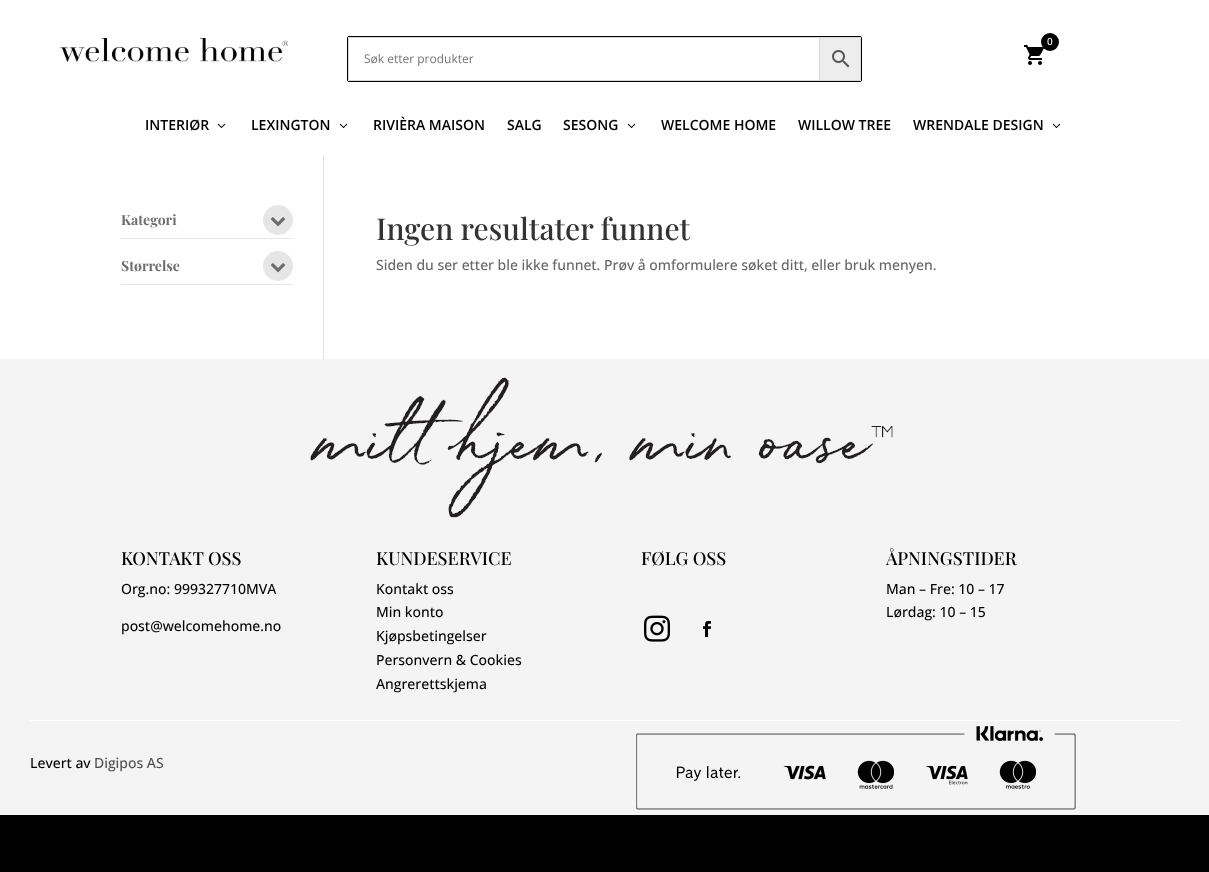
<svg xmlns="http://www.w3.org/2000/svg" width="1209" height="872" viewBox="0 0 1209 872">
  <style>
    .t1 { font: 12px Open Sans; fill: #757575; }
    .t2 { font: 500 10px Open Sans; fill: #fff; }
    .t3 { font: 600 14px Open Sans; fill: #000; }
    .t4 { font: bold 14px Playfair Display; fill: #6d6d6d; }
    .t5 { font: 500 30px Playfair Display; fill: #333; }
    .t6 { font: 500 14px Open Sans; fill: #666; }
    .t7 { font: 500 18px Playfair Display; fill: #000; }
    .t8 { font: 500 14px Open Sans; fill: #000; }
    .t9 { font: 500 14px Open Sans; fill: #4f4f4f; }
  </style>
  <rect width="100%" height="100%" fill="#000"/>
  <rect x="0" y="0" width="1209" height="359" fill="#fff"/>
  <image x="60" y="38" width="228" height="24" href="images/1.png"/>
  <rect x="347.5" y="36.5" width="514" height="45" rx="1.5" fill="none" stroke="#000"/>
  <path d="M819 37H860C860.5 37 861 37.5 861 38V80C861 80.5 860.5 81 860 81H819Z" fill="#ededed"/>
  <path d="M819 37V81H860C861 81 861 81 861 80V38C861 37 861 37 860 37ZM820 38V80H860V38Z" fill="#d8d8d8" fill-rule="evenodd"/>
  <path d="M349 37H820V81H349C348.5 81 348 80.5 348 80V38C348 37.5 348.5 37 349 37Z" fill="#fff"/>
  <path d="M349 37C348 37 348 37 348 38V80C348 81 348 81 349 81H820V37ZM349 38V80H819V38Z" fill="#d8d8d8" fill-rule="evenodd"/>
  <text x="364" y="63" class="t1">Søk etter produkter</text>
  <image x="832" y="50" width="18" height="18" href="images/2.png"/>
  <image x="1024" y="45" width="20" height="20" href="images/3.png"/>
  <circle cx="1050" cy="42" r="9" fill="#000"/>
  <text x="1047" y="45" class="t2">0</text>
  <text x="145" y="130" class="t3">INTERIØR</text>
  <image x="217" y="123" width="9" height="5" href="images/4.png"/>
  <text x="251" y="130" class="t3">LEXINGTON</text>
  <image x="339" y="123" width="9" height="5" href="images/4.png"/>
  <text x="373" y="130" class="t3">RIVIÈRA MAISON</text>
  <text x="507" y="130" class="t3">SALG</text>
  <text x="563" y="130" class="t3">SESONG</text>
  <image x="627" y="123" width="9" height="5" href="images/4.png"/>
  <text x="661" y="130" class="t3">WELCOME HOME</text>
  <text x="798" y="130" class="t3">WILLOW TREE</text>
  <text x="913" y="130" class="t3">WRENDALE DESIGN</text>
  <image x="1052" y="123" width="9" height="5" href="images/4.png"/>
  <rect x="323" y="155" width="1" height="204" fill="#e2e2e2"/>
  <rect x="121" y="238" width="172" height="1" fill="#e6e6e6"/>
  <text x="121" y="225" class="t4">Kategori</text>
  <circle cx="278" cy="220" r="15" fill="#e6e6e6"/>
  <image x="270" y="217" width="16" height="10" href="images/5.png"/>
  <rect x="121" y="284" width="172" height="1" fill="#e6e6e6"/>
  <text x="121" y="271" class="t4">Størrelse</text>
  <circle cx="278" cy="266" r="15" fill="#e6e6e6"/>
  <image x="270" y="263" width="16" height="10" href="images/5.png"/>
  <text x="376" y="240" class="t5">Ingen resultater funnet</text>
  <text x="376" y="270" class="t6">Siden du ser etter ble ikke funnet. Prøv å omformulere søket ditt, eller bruk menyen.</text>
  <rect x="0" y="359" width="1209" height="456" fill="#f4f4f4"/>
  <image x="310" y="377" width="583" height="141" href="images/6.png"/>
  <text x="121" y="565" class="t7">KONTAKT OSS</text>
  <text x="121" y="594" class="t8">Org.no: 999327710MVA</text>
  <text x="121" y="631" class="t8">post@welcomehome.no</text>
  <text x="376" y="565" class="t7">KUNDESERVICE</text>
  <text x="376" y="594" class="t8">Kontakt oss</text>
  <text x="376" y="617" class="t8">Min konto</text>
  <text x="376" y="641" class="t8">Kjøpsbetingelser</text>
  <text x="376" y="665" class="t8">Personvern &amp; Cookies</text>
  <text x="376" y="689" class="t8">Angrerettskjema</text>
  <text x="641" y="565" class="t7">FØLG OSS</text>
  <image x="644" y="615" width="26" height="27" href="images/7.png"/>
  <image x="703" y="621" width="8" height="16" href="images/8.png"/>
  <text x="886" y="565" class="t7">ÅPNINGSTIDER</text>
  <text x="886" y="594" class="t8">Man – Fre: 10 – 17</text>
  <text x="886" y="617" class="t8">Lørdag: 10 – 15</text>
  <rect x="30" y="720" width="1149" height="1" fill="#fff"/>
  <text x="30" y="768" class="t8">Levert av</text>
  <text x="94" y="768" class="t9">Digipos AS</text>
  <image x="636" y="726" width="440" height="84" href="images/9.png"/>
</svg>
